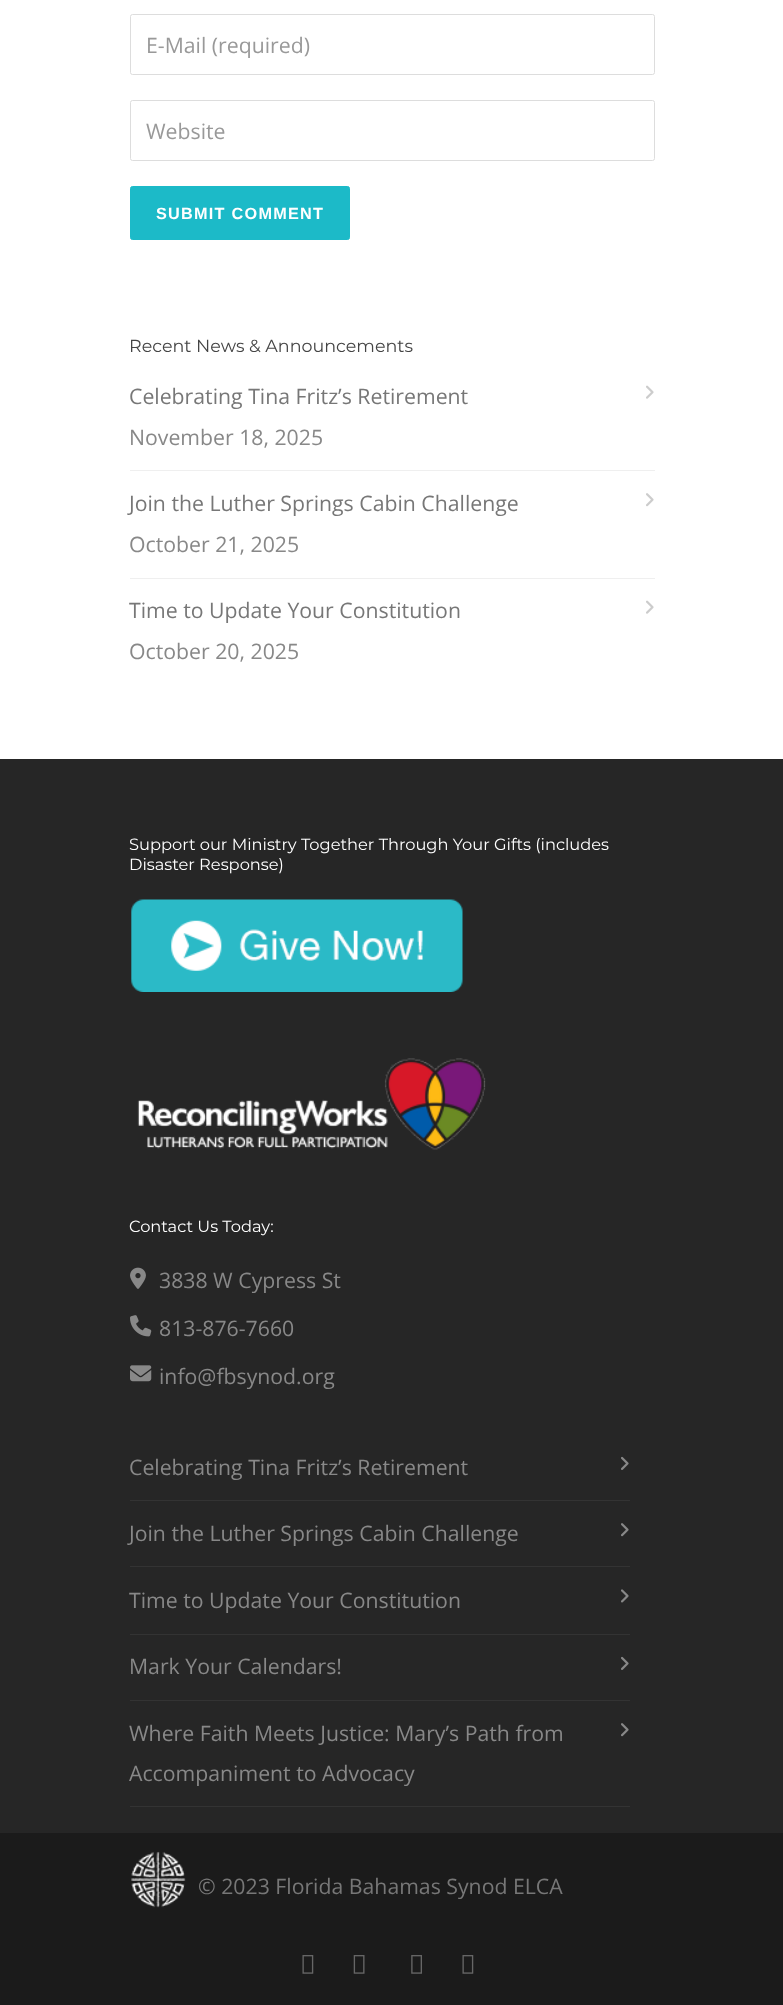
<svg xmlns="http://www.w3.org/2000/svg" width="783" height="2005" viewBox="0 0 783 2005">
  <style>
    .t1 { font: 21.25px Open Sans; fill: #999; }
    .t2 { font: bold 16.25px Liberation Sans; letter-spacing: 1.25px; fill: #fff; }
    .t3 { font: 100 17.5px Montserrat; fill: #444; }
    .t4 { font: 21.25px Open Sans; fill: #777; }
    .t5 { font: 21.25px Open Sans; fill: #888; }
    .t6 { font: 100 16.25px Montserrat; fill: #fff; }
  </style>
  <rect width="100%" height="100%" fill="#fff"/>
  <rect x="130.5" y="14.5" width="524" height="60" rx="2" fill="none" stroke="#ddd"/>
  <text x="146" y="53" class="t1">E-Mail (required)</text>
  <rect x="130.5" y="100.5" width="524" height="60" rx="2" fill="none" stroke="#ddd"/>
  <text x="146" y="139" class="t1">Website</text>
  <rect x="130.5" y="186.5" width="219" height="53" rx="2" fill="#1cbac8" stroke="#1cbac8"/>
  <text x="156" y="219" class="t2">SUBMIT COMMENT</text>
  <text x="129" y="352" class="t3">Recent News &amp; Announcements</text>
  <rect x="130" y="470" width="525" height="1" fill="#efefef"/>
  <text x="129" y="404" class="t4">Celebrating Tina Fritz’s Retirement</text>
  <image x="646" y="385" width="8" height="14" href="images/1.png"/>
  <text x="129" y="445" class="t5">November 18, 2025</text>
  <rect x="130" y="578" width="525" height="1" fill="#efefef"/>
  <text x="129" y="511" class="t4">Join the Luther Springs Cabin Challenge</text>
  <image x="646" y="493" width="8" height="14" href="images/2.png"/>
  <text x="129" y="552" class="t5">October 21, 2025</text>
  <text x="129" y="618" class="t4">Time to Update Your Constitution</text>
  <image x="646" y="600" width="8" height="14" href="images/1.png"/>
  <text x="129" y="659" class="t5">October 20, 2025</text>
  <rect x="0" y="759" width="783" height="1074" fill="#262626"/>
  <text x="129" y="850" class="t6">Support our Ministry Together Through Your Gifts (includes</text>
  <text x="129" y="870" class="t6">Disaster Response)</text>
  <image x="131" y="899" width="332" height="93" href="images/3.png"/>
  <image x="137" y="1058" width="349" height="92" href="images/4.png"/>
  <text x="129" y="1232" class="t6">Contact Us Today:</text>
  <image x="130" y="1267" width="16" height="22" href="images/5.png"/>
  <text x="159" y="1288" class="t5">3838 W Cypress St</text>
  <image x="130" y="1315" width="22" height="22" href="images/6.png"/>
  <text x="159" y="1336" class="t5">813-876-7660</text>
  <image x="130" y="1365" width="22" height="17" href="images/7.png"/>
  <text x="159" y="1384" class="t5">info@fbsynod.org</text>
  <rect x="130" y="1500" width="500" height="1" fill="#333"/>
  <text x="129" y="1475" class="t5">Celebrating Tina Fritz’s Retirement</text>
  <image x="621" y="1456" width="8" height="14" href="images/8.png"/>
  <rect x="130" y="1566" width="500" height="1" fill="#333"/>
  <text x="129" y="1541" class="t5">Join the Luther Springs Cabin Challenge</text>
  <image x="621" y="1523" width="8" height="14" href="images/9.png"/>
  <rect x="130" y="1634" width="500" height="1" fill="#333"/>
  <text x="129" y="1608" class="t5">Time to Update Your Constitution</text>
  <image x="621" y="1589" width="8" height="14" href="images/10.png"/>
  <rect x="130" y="1700" width="500" height="1" fill="#333"/>
  <text x="129" y="1674" class="t5">Mark Your Calendars!</text>
  <image x="621" y="1656" width="8" height="14" href="images/8.png"/>
  <rect x="130" y="1806" width="500" height="1" fill="#333"/>
  <text x="129" y="1741" class="t5">Where Faith Meets Justice: Mary’s Path from</text>
  <text x="129" y="1781" class="t5">Accompaniment to Advocacy</text>
  <image x="621" y="1723" width="8" height="14" href="images/9.png"/>
  <rect x="0" y="1833" width="783" height="172" fill="#1b1b1b"/>
  <image x="131" y="1851" width="55" height="57" href="images/11.png"/>
  <text x="198" y="1894" class="t4">© 2023 Florida Bahamas Synod ELCA</text>
  <image x="302" y="1955" width="12" height="19" href="images/12.png"/>
  <image x="353" y="1955" width="12" height="19" href="images/13.png"/>
  <image x="411" y="1955" width="11" height="19" href="images/14.png"/>
  <image x="462" y="1955" width="12" height="19" href="images/12.png"/>
</svg>
